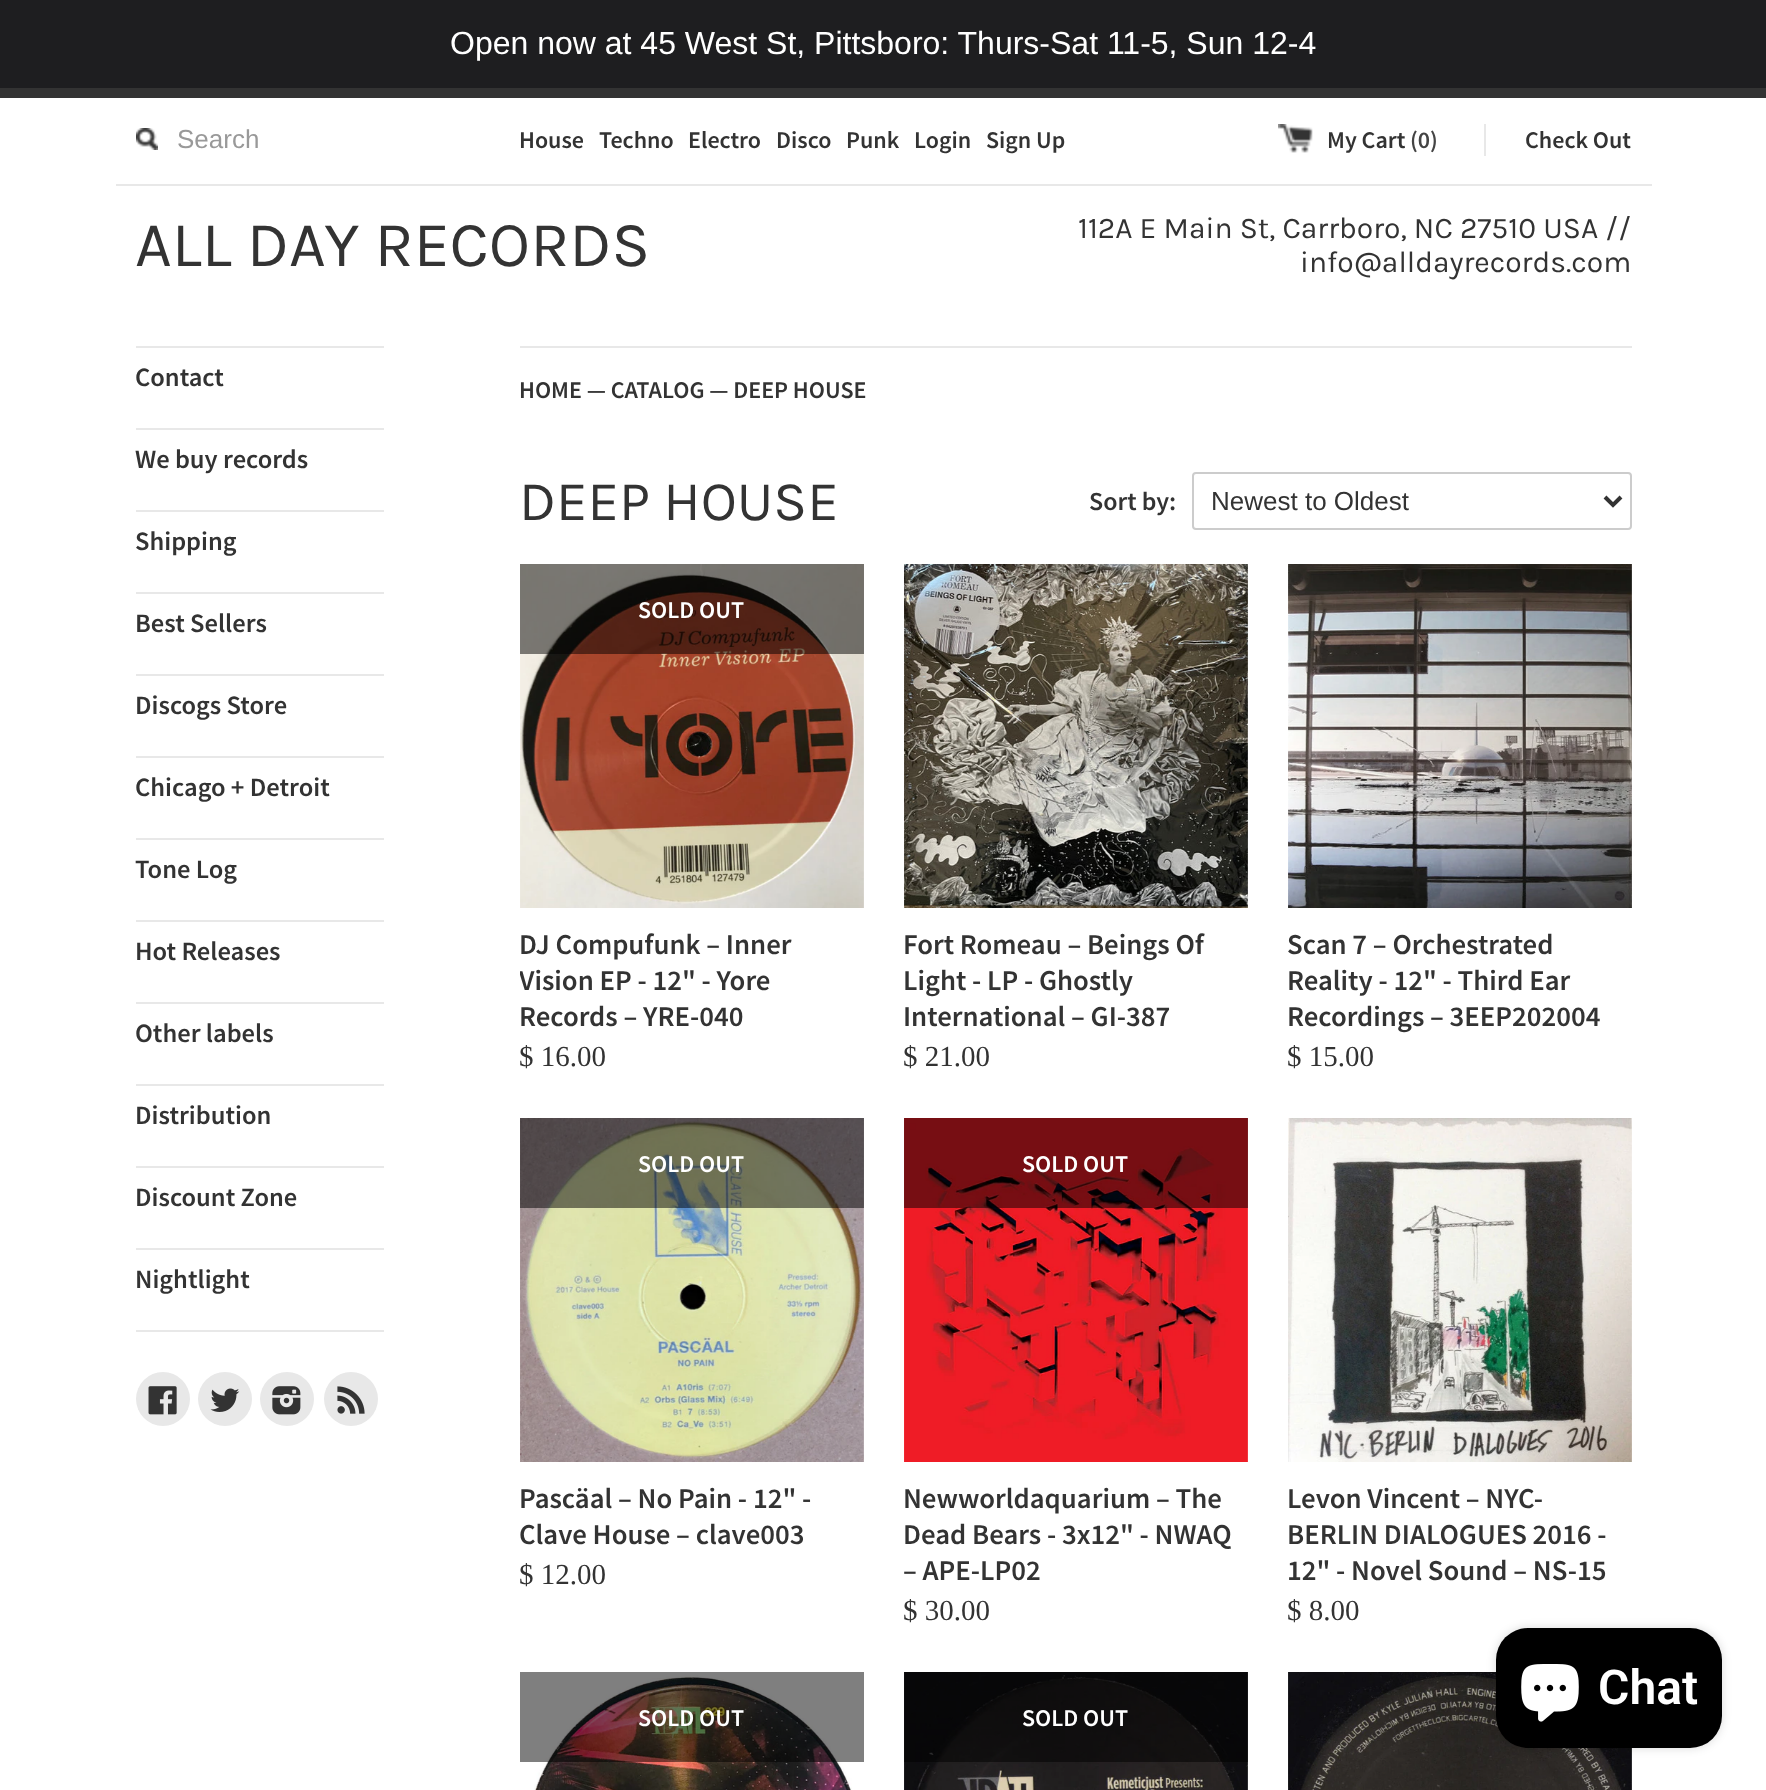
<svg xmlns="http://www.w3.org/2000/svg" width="1766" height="1790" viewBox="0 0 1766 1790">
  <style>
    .t1 { font: 32px Liberation Sans; fill: #fff; }
    .t2 { font: 26px Liberation Sans; fill: #999; }
    .t3 { font: 600 24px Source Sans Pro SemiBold; fill: #333; }
    .t4 { font: 600 24px Source Sans Pro SemiBold; fill: #444; }
    .t5 { font: 64px Karla; fill: #333; }
    .t6 { font: 30px Karla; fill: #333; }
    .t7 { font: 600 26.5px Source Sans Pro SemiBold; fill: #333; }
    .t8 { font: 56px Karla; fill: #333; }
    .t9 { font: 600 26px Source Sans Pro SemiBold; fill: #333; }
    .t10 { font: 26px Liberation Sans; fill: #333; }
    .t11 { font: 600 24px Source Sans Pro SemiBold; fill: #fff; }
    .t12 { font: 600 28.75px Source Sans Pro SemiBold; fill: #333; }
    .t13 { font: 29px Liberation Serif; fill: #333; }
    .t14 { font: 600 48px Roboto; fill: #fff; }
  </style>
  <defs>
    <clipPath id="clip1"><rect x="520" y="564" width="344" height="514"/></clipPath>
  </defs>
  <rect width="100%" height="100%" fill="#fff"/>
  <rect x="0" y="0" width="1766" height="88" fill="#1e1e20"/>
  <text x="450" y="54" class="t1">Open now at 45 West St, Pittsboro: Thurs-Sat 11-5, Sun 12-4</text>
  <rect x="0" y="88" width="1766" height="10" fill="#333"/>
  <rect x="116" y="184" width="1536" height="2" fill="#e8e8e8"/>
  <image x="136" y="128" width="22" height="22" href="images/1.png"/>
  <text x="177" y="148" class="t2">Search</text>
  <text x="519" y="148" class="t3">House</text>
  <text x="599" y="148" class="t3">Techno</text>
  <text x="688" y="148" class="t3">Electro</text>
  <text x="776" y="148" class="t3">Disco</text>
  <text x="846" y="148" class="t3">Punk</text>
  <text x="914" y="148" class="t3">Login</text>
  <text x="986" y="148" class="t3">Sign Up</text>
  <image x="1278" y="124" width="35" height="29" href="images/2.png"/>
  <text x="1327" y="148" class="t3">My Cart</text>
  <text x="1410" y="148" class="t4">(0)</text>
  <text x="1525" y="148" class="t3">Check Out</text>
  <rect x="1484" y="124" width="2" height="32" fill="#e8e8e8"/>
  <text x="135" y="266" class="t5">ALL DAY RECORDS</text>
  <text x="1078" y="238" class="t6">112A E Main St, Carrboro, NC 27510 USA //</text>
  <text x="1300" y="272" class="t6">info@alldayrecords.com</text>
  <rect x="136" y="1330" width="248" height="2" fill="#e8e8e8"/>
  <rect x="136" y="346" width="248" height="2" fill="#e8e8e8"/>
  <text x="135" y="386" class="t7">Contact</text>
  <rect x="136" y="428" width="248" height="2" fill="#e8e8e8"/>
  <text x="135" y="468" class="t7">We buy records</text>
  <rect x="136" y="510" width="248" height="2" fill="#e8e8e8"/>
  <text x="135" y="550" class="t7">Shipping</text>
  <rect x="136" y="592" width="248" height="2" fill="#e8e8e8"/>
  <text x="135" y="632" class="t7">Best Sellers</text>
  <rect x="136" y="674" width="248" height="2" fill="#e8e8e8"/>
  <text x="135" y="714" class="t7">Discogs Store</text>
  <rect x="136" y="756" width="248" height="2" fill="#e8e8e8"/>
  <text x="135" y="796" class="t7">Chicago + Detroit</text>
  <rect x="136" y="838" width="248" height="2" fill="#e8e8e8"/>
  <text x="135" y="878" class="t7">Tone Log</text>
  <rect x="136" y="920" width="248" height="2" fill="#e8e8e8"/>
  <text x="135" y="960" class="t7">Hot Releases</text>
  <rect x="136" y="1002" width="248" height="2" fill="#e8e8e8"/>
  <text x="135" y="1042" class="t7">Other labels</text>
  <rect x="136" y="1084" width="248" height="2" fill="#e8e8e8"/>
  <text x="135" y="1124" class="t7">Distribution</text>
  <rect x="136" y="1166" width="248" height="2" fill="#e8e8e8"/>
  <text x="135" y="1206" class="t7">Discount Zone</text>
  <rect x="136" y="1248" width="248" height="2" fill="#e8e8e8"/>
  <text x="135" y="1288" class="t7">Nightlight</text>
  <circle cx="163" cy="1399" r="27" fill="#e8e8e8"/>
  <image x="148" y="1386" width="29" height="29" href="images/3.png"/>
  <circle cx="225" cy="1399" r="27" fill="#e8e8e8"/>
  <image x="210" y="1388" width="30" height="24" href="images/4.png"/>
  <circle cx="287" cy="1399" r="27" fill="#e8e8e8"/>
  <image x="272" y="1386" width="29" height="29" href="images/5.png"/>
  <circle cx="351" cy="1399" r="27" fill="#e8e8e8"/>
  <image x="337" y="1386" width="28" height="28" href="images/6.png"/>
  <rect x="520" y="346" width="1112" height="2" fill="#e8e8e8"/>
  <text x="519" y="398" class="t3">HOME — CATALOG — DEEP HOUSE</text>
  <text x="519" y="520" class="t8">DEEP HOUSE</text>
  <text x="1089" y="510" class="t9">Sort by:</text>
  <rect x="1193" y="473" width="438" height="56" rx="3" fill="none" stroke="#ccc" stroke-width="2"/>
  <path d="M1605 497L1613 505L1621 497" fill="none" stroke="#333" stroke-width="4"/>
  <text x="1211" y="510" class="t10">Newest to Oldest</text>
  <image x="520" y="564" width="344" height="344" href="images/7.png"/>
  <rect x="520" y="564" width="344" height="90" fill="#00000080"/>
  <text x="638" y="618" class="t11">SOLD OUT</text>
  <text x="519" y="954" class="t12">DJ Compufunk – Inner</text>
  <g clip-path="url(#clip1)">
    <text x="519" y="990" class="t12">Vision EP - 12" - Yore</text>
  </g>
  <text x="519" y="1026" class="t12">Records – YRE-040</text>
  <text x="519" y="1066" class="t13">$ 16.00</text>
  <image x="904" y="564" width="344" height="344" href="images/8.png"/>
  <text x="903" y="954" class="t12">Fort Romeau – Beings Of</text>
  <text x="903" y="990" class="t12">Light - LP - Ghostly</text>
  <text x="903" y="1026" class="t12">International – GI-387</text>
  <text x="903" y="1066" class="t13">$ 21.00</text>
  <image x="1288" y="564" width="344" height="344" href="images/9.png"/>
  <text x="1287" y="954" class="t12">Scan 7 – Orchestrated</text>
  <text x="1287" y="990" class="t12">Reality - 12" - Third Ear</text>
  <text x="1287" y="1026" class="t12">Recordings – 3EEP202004</text>
  <text x="1287" y="1066" class="t13">$ 15.00</text>
  <image x="520" y="1118" width="344" height="344" href="images/10.png"/>
  <rect x="520" y="1118" width="344" height="90" fill="#00000080"/>
  <text x="638" y="1172" class="t11">SOLD OUT</text>
  <text x="519" y="1508" class="t12">Pascäal – No Pain - 12" -</text>
  <text x="519" y="1544" class="t12">Clave House – clave003</text>
  <text x="519" y="1584" class="t13">$ 12.00</text>
  <image x="904" y="1118" width="344" height="344" href="images/11.png"/>
  <rect x="904" y="1118" width="344" height="90" fill="#00000080"/>
  <text x="1022" y="1172" class="t11">SOLD OUT</text>
  <text x="903" y="1508" class="t12">Newworldaquarium – The</text>
  <text x="903" y="1544" class="t12">Dead Bears - 3x12" - NWAQ</text>
  <text x="903" y="1580" class="t12">– APE-LP02</text>
  <text x="903" y="1620" class="t13">$ 30.00</text>
  <image x="1288" y="1118" width="344" height="344" href="images/12.png"/>
  <text x="1287" y="1508" class="t12">Levon Vincent – NYC-</text>
  <text x="1287" y="1544" class="t12">BERLIN DIALOGUES 2016 -</text>
  <text x="1287" y="1580" class="t12">12" - Novel Sound – NS-15</text>
  <text x="1287" y="1620" class="t13">$ 8.00</text>
  <image x="534" y="1675" width="318" height="115" href="images/13.png"/>
  <rect x="520" y="1672" width="344" height="90" fill="#00000080"/>
  <text x="638" y="1726" class="t11">SOLD OUT</text>
  <image x="904" y="1672" width="344" height="118" href="images/14.png"/>
  <rect x="904" y="1672" width="344" height="90" fill="#00000080"/>
  <text x="1022" y="1726" class="t11">SOLD OUT</text>
  <image x="1288" y="1672" width="344" height="118" href="images/15.png"/>
  <rect x="1496" y="1628" width="226" height="120" rx="32" fill="#00000026" filter="blur(5px)"/>
  <rect x="1496" y="1628" width="226" height="120" rx="32" fill="#000"/>
  <image x="1521" y="1664" width="58" height="58" href="images/16.png"/>
  <text x="1598" y="1704" class="t14">Chat</text>
</svg>
